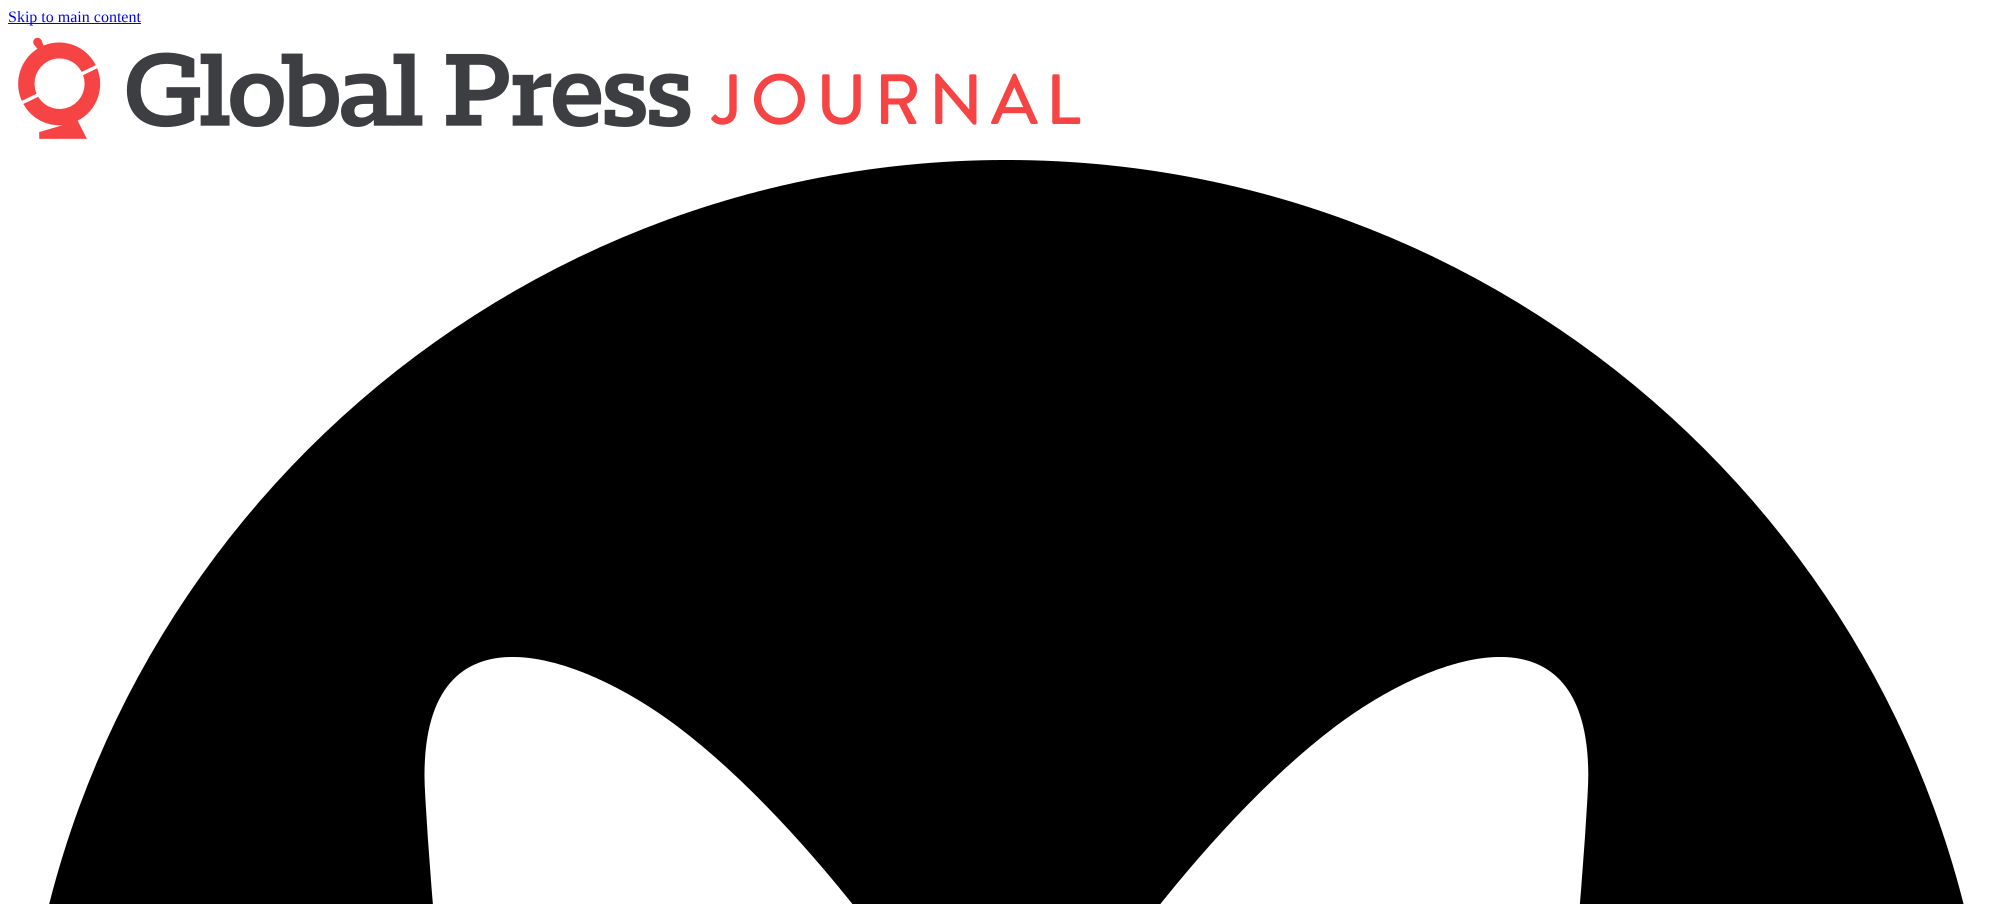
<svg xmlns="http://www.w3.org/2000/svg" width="2015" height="904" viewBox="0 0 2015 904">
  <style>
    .t1 { font: 16px Liberation Serif; fill: #00e; }
  </style>
  <rect width="100%" height="100%" fill="#fff"/>
  <rect x="8" y="23" width="133" height="1" fill="#00e"/>
  <text x="8" y="22" class="t1">Skip to main content</text>
  <image x="18" y="37" width="1063" height="102" href="images/1.png"/>
  <image x="49" y="160" width="1915" height="744" href="images/2.png"/>
</svg>
